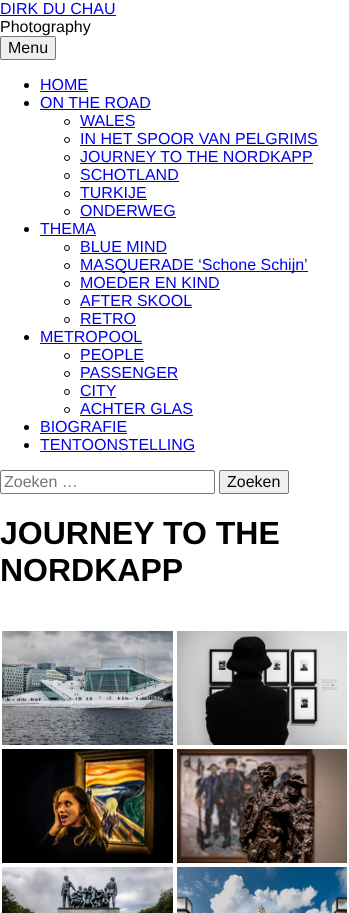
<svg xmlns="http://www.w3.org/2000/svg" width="349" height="913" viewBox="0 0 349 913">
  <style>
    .t1 { font: 16px Liberation Sans; fill: #00e; }
    .t2 { font: 16px Liberation Sans; fill: #000; }
    .t3 { font: 16px Liberation Sans; fill: #757575; }
    .t4 { font: bold 32px Liberation Sans; fill: #000; }
  </style>
  <rect width="100%" height="100%" fill="#fff"/>
  <text x="0" y="14" class="t1">DIRK DU CHAU</text>
  <rect x="0" y="15" width="116" height="1" fill="#00e"/>
  <text x="0" y="32" class="t2">Photography</text>
  <rect x="0.5" y="36.5" width="55" height="23" rx="1.5" fill="#efefef" stroke="#767676"/>
  <text x="8" y="53" class="t2">Menu</text>
  <circle cx="26.5" cy="85.5" r="2.5" fill="#000"/>
  <text x="40" y="90" class="t1">HOME</text>
  <rect x="40" y="91" width="48" height="1" fill="#00e"/>
  <circle cx="26.5" cy="103.5" r="2.5" fill="#000"/>
  <text x="40" y="108" class="t1">ON THE ROAD</text>
  <rect x="40" y="109" width="111" height="1" fill="#00e"/>
  <circle cx="67" cy="122" r="2.5" fill="none" stroke="#000"/>
  <text x="80" y="126" class="t1">WALES</text>
  <rect x="80" y="127" width="55" height="1" fill="#00e"/>
  <circle cx="67" cy="140" r="2.5" fill="none" stroke="#000"/>
  <text x="80" y="144" class="t1">IN HET SPOOR VAN PELGRIMS</text>
  <rect x="80" y="145" width="238" height="1" fill="#00e"/>
  <circle cx="67" cy="158" r="2.5" fill="none" stroke="#000"/>
  <text x="80" y="162" class="t1">JOURNEY TO THE NORDKAPP</text>
  <rect x="80" y="163" width="233" height="1" fill="#00e"/>
  <circle cx="67" cy="176" r="2.5" fill="none" stroke="#000"/>
  <text x="80" y="180" class="t1">SCHOTLAND</text>
  <rect x="80" y="181" width="99" height="1" fill="#00e"/>
  <circle cx="67" cy="194" r="2.5" fill="none" stroke="#000"/>
  <text x="80" y="198" class="t1">TURKIJE</text>
  <rect x="80" y="199" width="67" height="1" fill="#00e"/>
  <circle cx="67" cy="212" r="2.5" fill="none" stroke="#000"/>
  <text x="80" y="216" class="t1">ONDERWEG</text>
  <rect x="80" y="217" width="96" height="1" fill="#00e"/>
  <circle cx="26.5" cy="229.5" r="2.5" fill="#000"/>
  <text x="40" y="234" class="t1">THEMA</text>
  <rect x="40" y="235" width="56" height="1" fill="#00e"/>
  <circle cx="67" cy="248" r="2.5" fill="none" stroke="#000"/>
  <text x="80" y="252" class="t1">BLUE MIND</text>
  <rect x="80" y="253" width="87" height="1" fill="#00e"/>
  <circle cx="67" cy="266" r="2.5" fill="none" stroke="#000"/>
  <rect x="80" y="271" width="228" height="1" fill="#00e"/>
  <text x="80" y="270" class="t1">MASQUERADE ‘Schone Schijn’</text>
  <circle cx="67" cy="284" r="2.5" fill="none" stroke="#000"/>
  <text x="80" y="288" class="t1">MOEDER EN KIND</text>
  <rect x="80" y="289" width="140" height="1" fill="#00e"/>
  <circle cx="67" cy="302" r="2.5" fill="none" stroke="#000"/>
  <text x="80" y="306" class="t1">AFTER SKOOL</text>
  <rect x="80" y="307" width="112" height="1" fill="#00e"/>
  <circle cx="67" cy="320" r="2.5" fill="none" stroke="#000"/>
  <text x="80" y="324" class="t1">RETRO</text>
  <rect x="80" y="325" width="56" height="1" fill="#00e"/>
  <circle cx="26.5" cy="337.5" r="2.5" fill="#000"/>
  <text x="40" y="342" class="t1">METROPOOL</text>
  <rect x="40" y="343" width="102" height="1" fill="#00e"/>
  <circle cx="67" cy="356" r="2.5" fill="none" stroke="#000"/>
  <text x="80" y="360" class="t1">PEOPLE</text>
  <rect x="80" y="361" width="64" height="1" fill="#00e"/>
  <circle cx="67" cy="374" r="2.5" fill="none" stroke="#000"/>
  <text x="80" y="378" class="t1">PASSENGER</text>
  <rect x="80" y="379" width="98" height="1" fill="#00e"/>
  <circle cx="67" cy="392" r="2.5" fill="none" stroke="#000"/>
  <text x="80" y="396" class="t1">CITY</text>
  <rect x="80" y="397" width="36" height="1" fill="#00e"/>
  <circle cx="67" cy="410" r="2.5" fill="none" stroke="#000"/>
  <text x="80" y="414" class="t1">ACHTER GLAS</text>
  <rect x="80" y="415" width="113" height="1" fill="#00e"/>
  <circle cx="26.5" cy="427.5" r="2.5" fill="#000"/>
  <text x="40" y="432" class="t1">BIOGRAFIE</text>
  <rect x="40" y="433" width="87" height="1" fill="#00e"/>
  <circle cx="26.5" cy="445.5" r="2.5" fill="#000"/>
  <text x="40" y="450" class="t1">TENTOONSTELLING</text>
  <rect x="40" y="451" width="155" height="1" fill="#00e"/>
  <rect x="0.5" y="470.5" width="214" height="23" rx="1.5" fill="none" stroke="#767676"/>
  <text x="4" y="487" class="t3">Zoeken …</text>
  <rect x="219.5" y="470.5" width="69" height="23" rx="1.5" fill="#efefef" stroke="#767676"/>
  <text x="227" y="487" class="t2">Zoeken</text>
  <text x="0" y="544" class="t4">JOURNEY TO THE</text>
  <text x="0" y="581" class="t4">NORDKAPP</text>
  <image x="2" y="631" width="171" height="114" href="images/1.png"/>
  <image x="177" y="631" width="170" height="114" href="images/2.png"/>
  <image x="2" y="749" width="171" height="114" href="images/3.png"/>
  <image x="177" y="749" width="170" height="114" href="images/4.png"/>
  <image x="2" y="867" width="171" height="46" href="images/5.png"/>
  <image x="177" y="867" width="170" height="46" href="images/6.png"/>
</svg>
